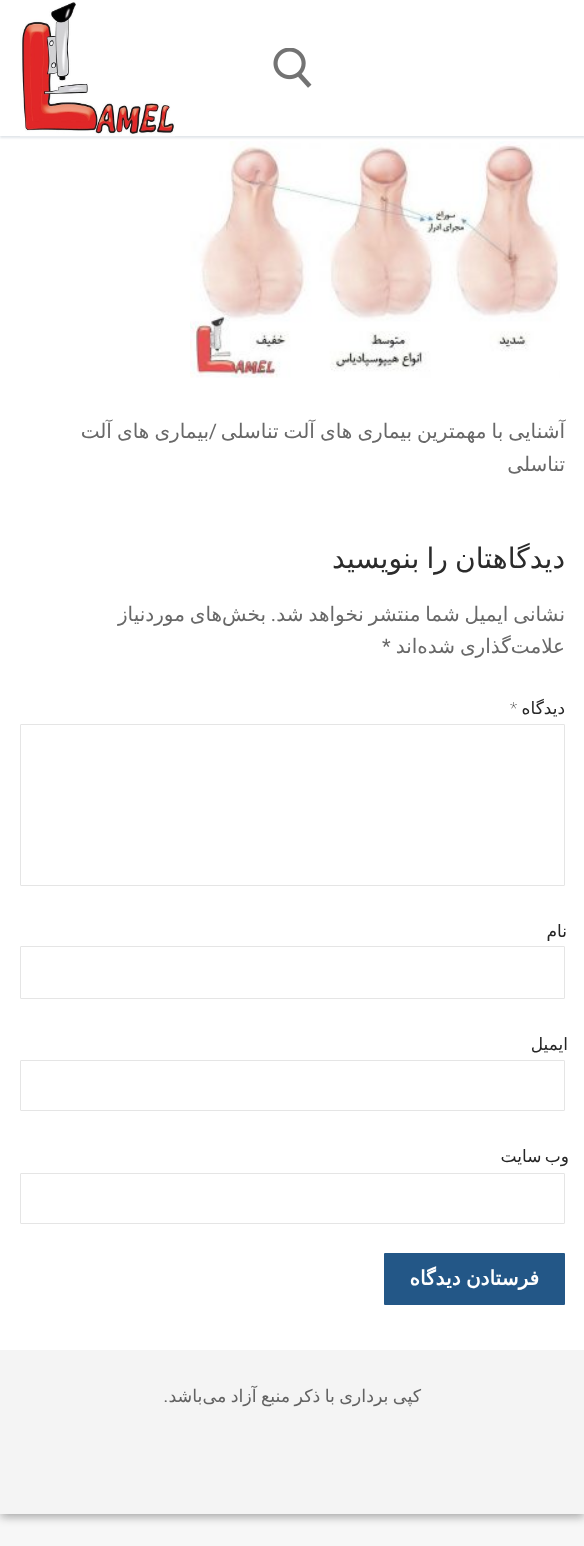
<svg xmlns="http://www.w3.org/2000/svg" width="584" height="1546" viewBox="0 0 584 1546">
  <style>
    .t1 { font: 20px DejaVu Sans; direction: rtl; fill: #686868; }
    .t2 { font: 20px Roboto; direction: rtl; fill: #686868; }
    .t3 { font: 28.25px DejaVu Sans; direction: rtl; fill: #2b2b2b; }
    .t4 { font: 20px Roboto; fill: #686868; }
    .t5 { font: 17px DejaVu Sans; letter-spacing: 0.5px; direction: rtl; fill: #252525; }
    .t6 { font: 100 17px Roboto; letter-spacing: 0.5px; fill: #252525; }
    .t7 { font: bold 20px DejaVu Sans; direction: rtl; fill: #fff; }
    .t8 { font: 17.5px DejaVu Sans; direction: rtl; fill: #626262; }
    .t9 { font: 17.5px Roboto; direction: rtl; fill: #626262; }
  </style>
  <rect width="100%" height="100%" fill="#f7f7f7"/>
  <rect x="0" y="4" width="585" height="1514" fill="#0000003b" filter="blur(4px)"/>
  <rect x="5" y="9" width="575" height="1504" fill="#00000029" filter="blur(4px)"/>
  <rect x="0" y="136" width="584" height="1214" fill="#fff"/>
  <image x="190" y="141" width="370" height="237" href="images/3.png"/>
  <rect x="0" y="1" width="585" height="137" fill="#e1e5ea" filter="blur(1px)"/>
  <rect x="0" y="0" width="584" height="136" fill="#fff"/>
  <image x="273" y="48" width="39" height="40" href="images/1.png"/>
  <image x="20" y="2" width="155" height="135" href="images/2.png"/>
  <text x="565" y="438" word-spacing="-1.25" class="t1">آشنایی با مهمترین بیماری های آلت تناسلی</text>
  <text x="209" y="438" word-spacing="-1.25" class="t1">بیماری های آلت</text>
  <text x="217" y="438" class="t2">/</text>
  <text x="565" y="471" class="t1">تناسلی</text>
  <text x="565" y="568" word-spacing="-2" class="t3">دیدگاهتان را بنویسید</text>
  <text x="565" y="621" word-spacing="-1.5" class="t1">نشانی ایمیل شما منتشر نخواهد شد</text>
  <text x="276" y="621" class="t2">.</text>
  <text x="266" y="621" word-spacing="-1.5" class="t1">بخش‌های موردنیاز</text>
  <text x="565" y="653" word-spacing="-1.5" class="t1">علامت‌گذاری شده‌اند</text>
  <text x="382" y="653" class="t4">*</text>
  <text x="565" y="714" class="t5">دیدگاه</text>
  <text x="510" y="714" class="t6">*</text>
  <rect x="20.5" y="724.5" width="544" height="161" rx="0.5" fill="none" stroke="#e5e5e5"/>
  <text x="567" y="937" class="t5">نام</text>
  <rect x="20.5" y="946.5" width="544" height="52" rx="0.5" fill="none" stroke="#e5e5e5"/>
  <text x="568" y="1050" class="t5">ایمیل</text>
  <rect x="20.5" y="1060.5" width="544" height="50" rx="0.5" fill="none" stroke="#e5e5e5"/>
  <text x="569" y="1162" word-spacing="-2" class="t5">وب‌ سایت</text>
  <rect x="20.5" y="1173.5" width="544" height="50" rx="0.5" fill="none" stroke="#e5e5e5"/>
  <rect x="384" y="1253" width="181" height="52" rx="1" fill="#235787"/>
  <text x="539" y="1285" word-spacing="-1" class="t7">فرستادن دیدگاه</text>
  <rect x="0" y="1350" width="584" height="164" fill="#f4f4f4"/>
  <text x="421" y="1402" word-spacing="-1.25" class="t8">کپی برداری با ذکر منبع آزاد می‌باشد</text>
  <text x="168" y="1402" class="t9">.</text>
</svg>
